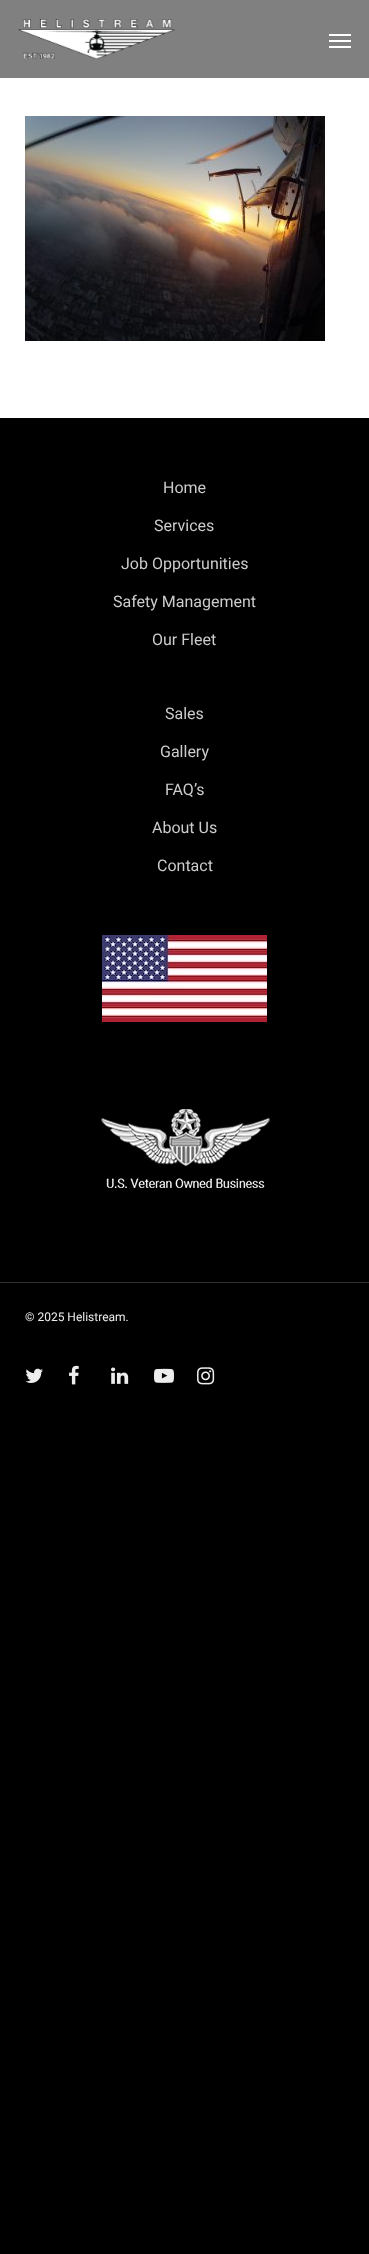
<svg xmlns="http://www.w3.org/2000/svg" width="369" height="2254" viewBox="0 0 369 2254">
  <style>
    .t1 { font: 16px Roboto; fill: #ccc; }
    .t2 { font: 12px Roboto; fill: #ededed; }
  </style>
  <rect width="100%" height="100%" fill="#000"/>
  <rect x="0" y="0" width="369" height="78" fill="#808080"/>
  <image x="18" y="19" width="157" height="40" href="images/1.png"/>
  <rect x="329" y="34" width="22" height="2" fill="#fff"/>
  <rect x="329" y="46" width="22" height="2" fill="#fff"/>
  <rect x="329" y="40" width="22" height="2" fill="#fff"/>
  <rect x="0" y="78" width="369" height="340" fill="#fff"/>
  <image x="25" y="116" width="300" height="225" href="images/2.png"/>
  <text x="163" y="493" class="t1">Home</text>
  <text x="154" y="531" class="t1">Services</text>
  <text x="121" y="569" class="t1">Job Opportunities</text>
  <text x="113" y="607" class="t1">Safety Management</text>
  <text x="152" y="645" class="t1">Our Fleet</text>
  <text x="165" y="719" class="t1">Sales</text>
  <text x="160" y="757" class="t1">Gallery</text>
  <text x="165" y="795" class="t1">FAQ’s</text>
  <text x="152" y="833" class="t1">About Us</text>
  <text x="157" y="871" class="t1">Contact</text>
  <image x="102" y="935" width="165" height="87" href="images/3.png"/>
  <image x="101" y="1109" width="169" height="79" href="images/4.png"/>
  <rect x="0" y="1282" width="369" height="1" fill="#2e2e2e"/>
  <text x="25" y="1321" class="t2">© 2025 Helistream.</text>
  <image x="25" y="1368" width="18" height="15" href="images/5.png"/>
  <image x="69" y="1365" width="10" height="20" href="images/6.png"/>
  <image x="111" y="1367" width="18" height="17" href="images/7.png"/>
  <image x="154" y="1368" width="20" height="15" href="images/8.png"/>
  <image x="197" y="1367" width="18" height="18" href="images/9.png"/>
</svg>
